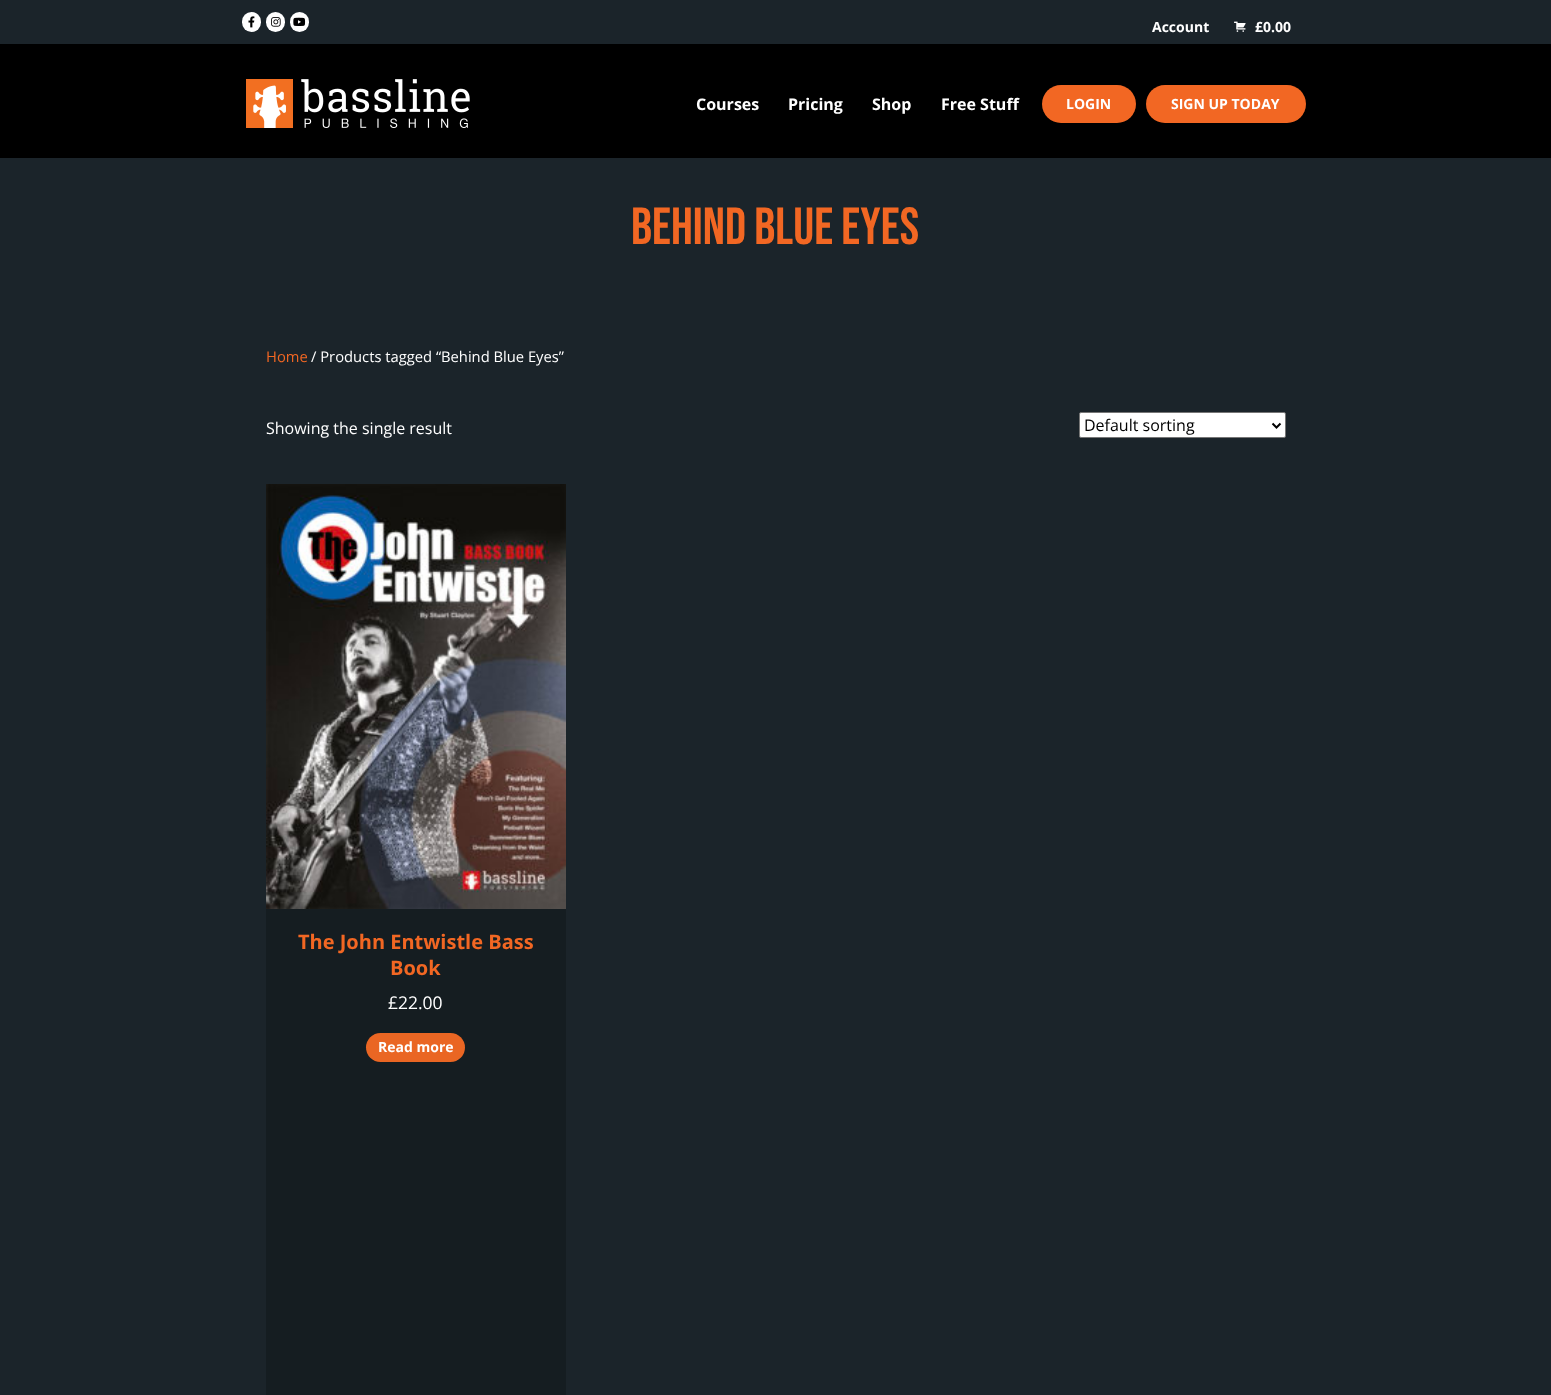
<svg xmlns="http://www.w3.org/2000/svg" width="1551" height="1395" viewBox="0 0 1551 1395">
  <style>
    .t1 { font: bold 14px Open Sans; fill: #fff; }
    .t2 { font: bold 16px Open Sans; fill: #fff; }
    .t3 { font: 52px Bebas Neue; fill: #f26723; }
    .t4 { font: 14.75px Open Sans; fill: #f26723; }
    .t5 { font: 14.75px Open Sans; fill: #fff; }
    .t6 { font: 16px Open Sans; fill: #fff; }
    .t7 { font: 16px Open Sans; fill: #000; }
    .t8 { font: bold 20px Open Sans; fill: #f26723; }
    .t9 { font: 17.5px Open Sans; fill: #fff; }
  </style>
  <rect width="100%" height="100%" fill="#1b242a"/>
  <rect x="242" y="12" width="19" height="20" rx="9.5" fill="#fff"/>
  <image x="248" y="16" width="7" height="12" href="images/1.png"/>
  <rect x="266" y="12" width="19" height="20" rx="9.5" fill="#fff"/>
  <image x="271" y="17" width="10" height="10" href="images/2.png"/>
  <rect x="290" y="12" width="19" height="20" rx="9.5" fill="#fff"/>
  <image x="293" y="17" width="13" height="9" href="images/3.png"/>
  <text x="1152" y="32" class="t1">Account</text>
  <image x="1234" y="21" width="12" height="11" href="images/4.png"/>
  <text x="1255" y="32" class="t1">£0.00</text>
  <rect x="0" y="44" width="1551" height="114" fill="#000"/>
  <image x="246" y="79" width="224" height="49" href="images/5.png"/>
  <text x="696" y="110" class="t2">Courses</text>
  <text x="788" y="110" class="t2">Pricing</text>
  <text x="872" y="110" class="t2">Shop</text>
  <text x="941" y="110" class="t2">Free Stuff</text>
  <rect x="1042" y="85" width="94" height="38" rx="19" fill="#f26723"/>
  <text x="1066" y="109" class="t1">LOGIN</text>
  <rect x="1146" y="85" width="160" height="38" rx="19" fill="#f26723"/>
  <text x="1171" y="109" class="t1">SIGN UP TODAY</text>
  <text x="631" y="244" class="t3">Behind Blue Eyes</text>
  <text x="266" y="362" class="t4">Home</text>
  <text x="311" y="362" class="t5">/ Products tagged “Behind Blue Eyes”</text>
  <text x="266" y="434" class="t6">Showing the single result</text>
  <rect x="1079.5" y="412.5" width="206" height="25" rx="1.5" fill="#fff" stroke="#767676"/>
  <path d="M1272.5 423.5L1276.5 427.5L1280.5 423.5" fill="none" stroke="#000" stroke-width="2"/>
  <text x="1084" y="431" class="t7">Default sorting</text>
  <rect x="266" y="909" width="300" height="486" fill="#151d21"/>
  <image x="266" y="484" width="300" height="425" href="images/6.png"/>
  <text x="298" y="949" class="t8">The John Entwistle Bass</text>
  <text x="390" y="975" class="t8">Book</text>
  <text x="388" y="1009" class="t9">£22.00</text>
  <rect x="366" y="1033" width="99" height="29" rx="14.5" fill="#ea6623"/>
  <text x="378" y="1052" class="t1">Read more</text>
</svg>
